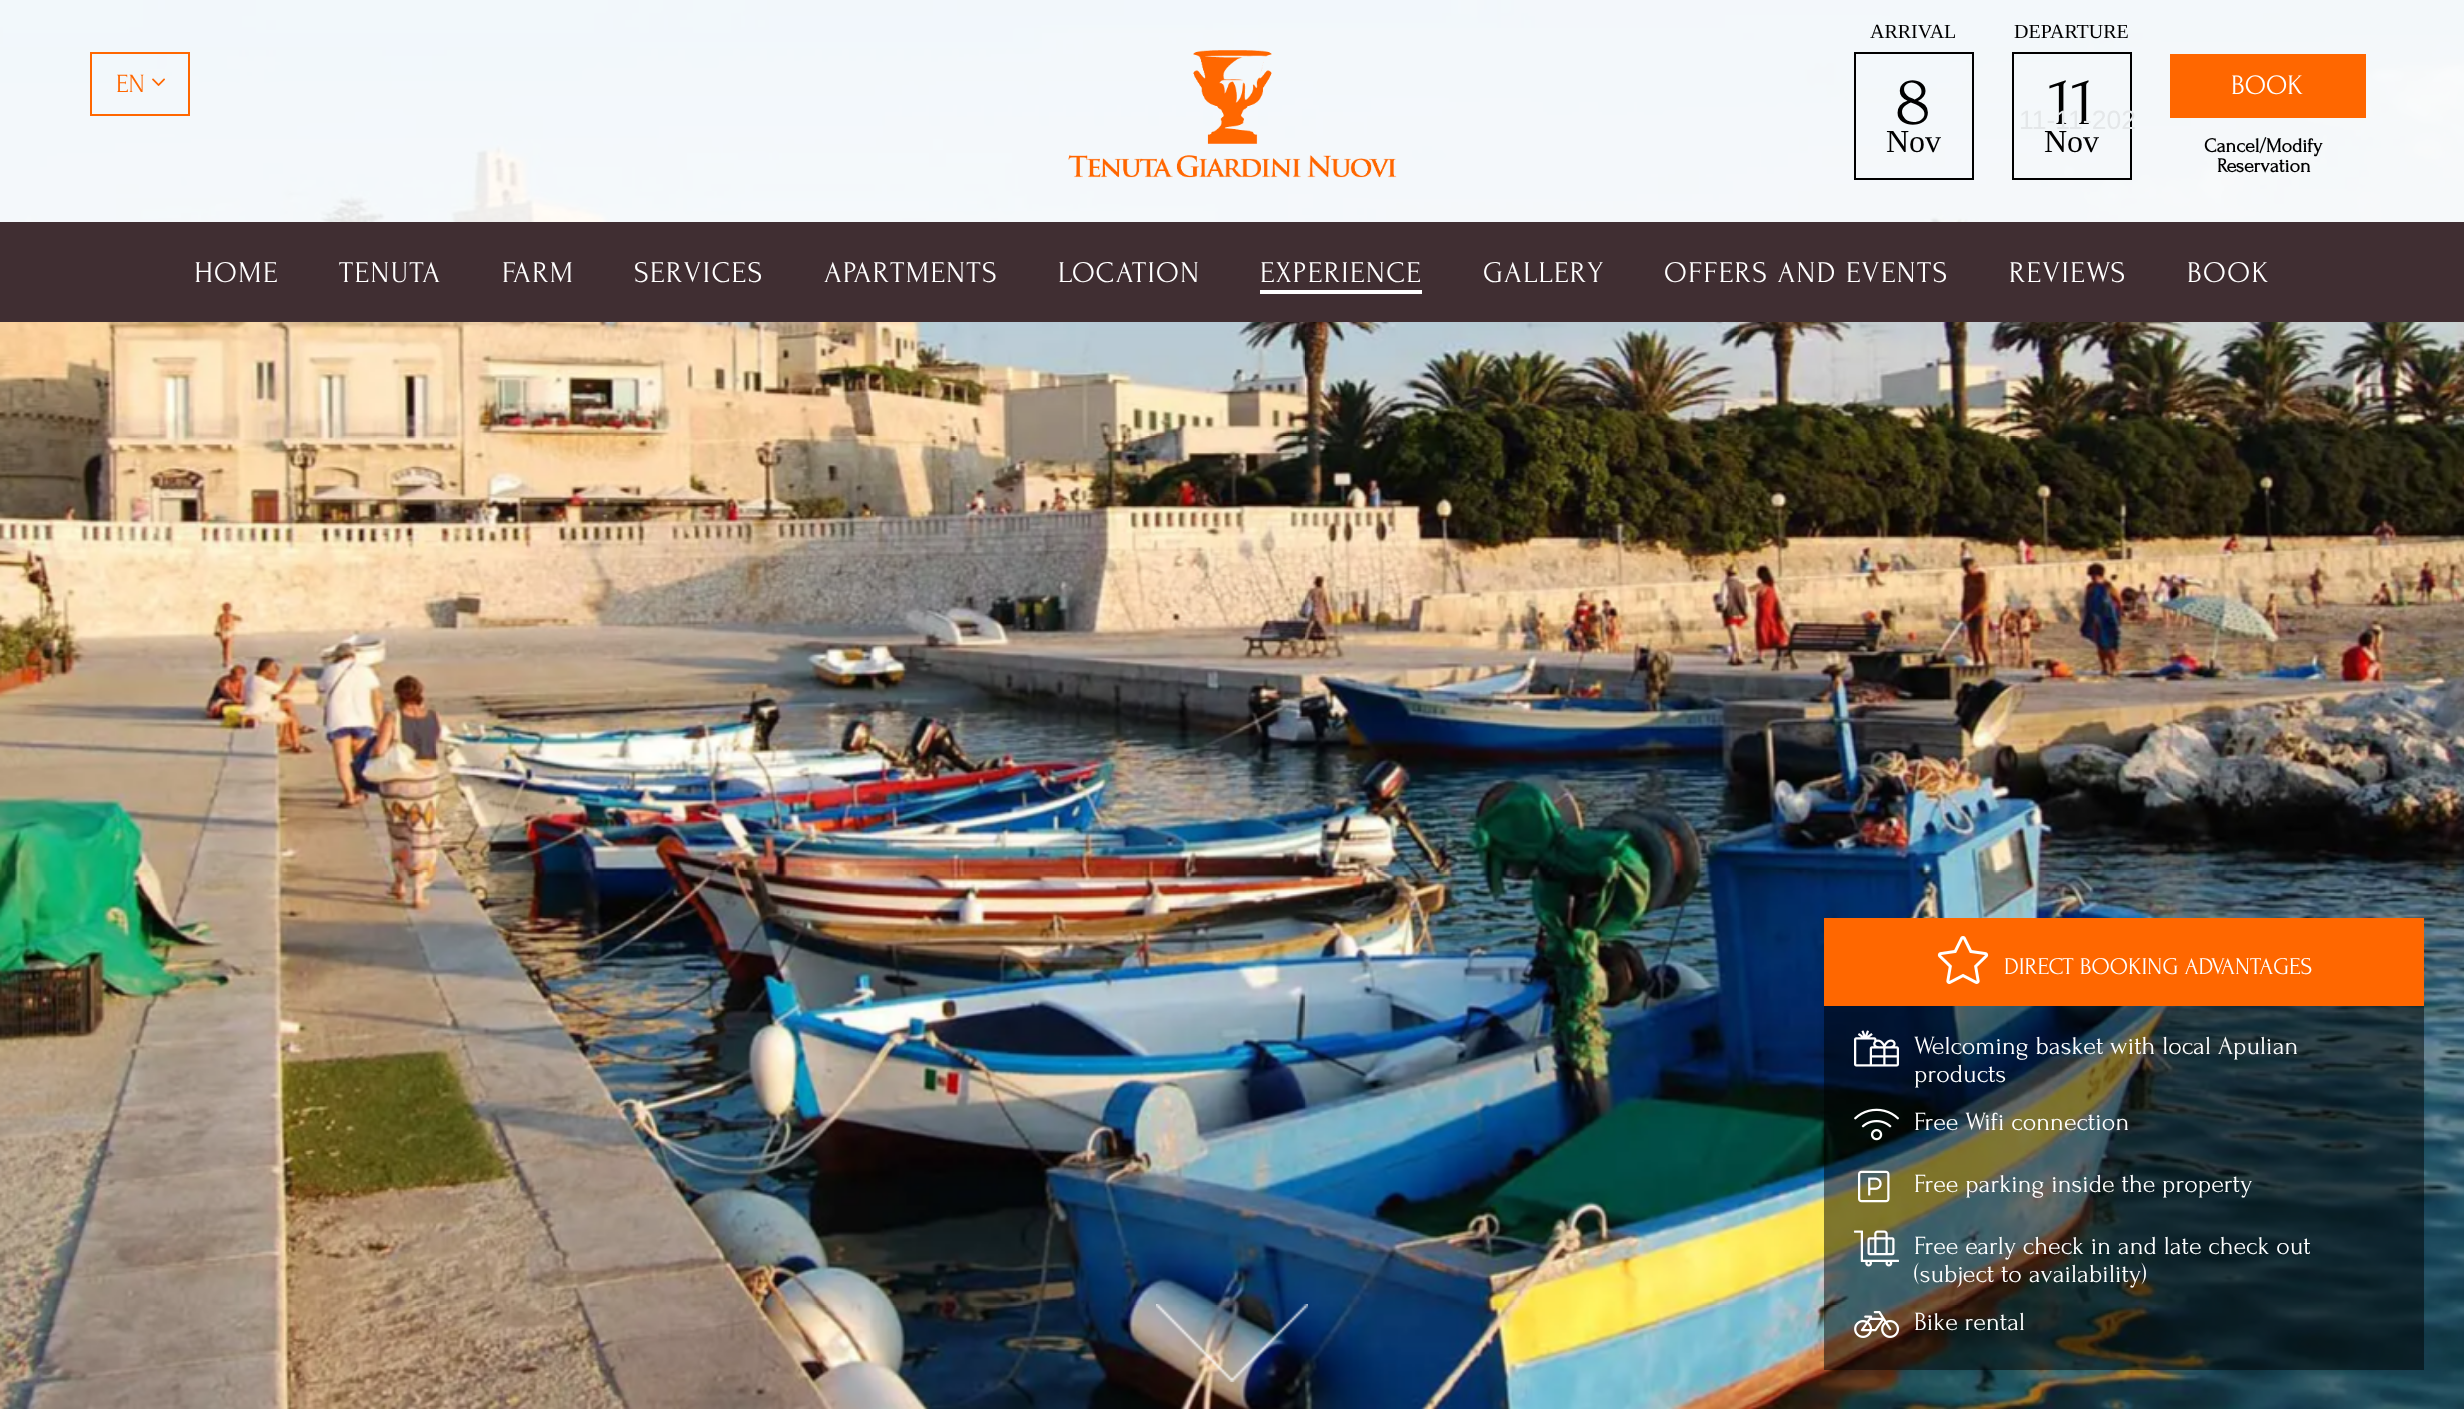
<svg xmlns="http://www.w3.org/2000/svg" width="2464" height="1409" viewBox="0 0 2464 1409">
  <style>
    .t1 { font: 26px Forum; fill: #ff6700; }
    .t2 { font: 20px Liberation Serif; fill: #000; }
    .t3 { font: 70px Forum; fill: #000; }
    .t4 { font: 32px Liberation Serif; fill: #000; }
    .t5 { font: 26.5px Liberation Sans; fill: #e4e7e9; }
    .t6 { font: 28px Forum; fill: #fff; }
    .t7 { font: bold 20px Forum; fill: #000; }
    .t8 { font: 30px Forum; letter-spacing: 1.4px; fill: #fff; }
    .t9 { font: 24px Forum; fill: #fff; }
    .t10 { font: 26px Forum; fill: #fff; }
  </style>
  <rect width="100%" height="100%" fill="#fff"/>
  <image x="0" y="0" width="2464" height="1409" href="images/1.png"/>
  <image x="0" y="0" width="2464" height="1409" href="images/2.png"/>
  <image x="1156" y="1304" width="152" height="78" href="images/3.png"/>
  <rect x="0" y="0" width="2464" height="222" fill="#ffffffde"/>
  <rect x="91" y="53" width="98" height="62" fill="none" stroke="#ff6700" stroke-width="2"/>
  <text x="116" y="92" class="t1">EN</text>
  <image x="152" y="78" width="13" height="8" href="images/4.png"/>
  <image x="1068" y="50" width="329" height="128" href="images/5.png"/>
  <rect x="1855" y="53" width="118" height="126" fill="none" stroke="#000" stroke-width="2"/>
  <text x="1870" y="38" class="t2">ARRIVAL</text>
  <text x="1896" y="124" class="t3">8</text>
  <text x="1886" y="152" class="t4">Nov</text>
  <rect x="2013" y="53" width="118" height="126" fill="none" stroke="#000" stroke-width="2"/>
  <text x="2014" y="38" class="t2">DEPARTURE</text>
  <text x="2049" y="124" class="t3">11</text>
  <text x="2019" y="129" class="t5">11-11-202</text>
  <text x="2044" y="152" class="t4">Nov</text>
  <rect x="2170" y="54" width="196" height="64" fill="#ff6700"/>
  <text x="2231" y="94" class="t6">BOOK</text>
  <text x="2204" y="152" class="t7">Cancel/Modify</text>
  <text x="2217" y="172" class="t7">Reservation</text>
  <rect x="0" y="222" width="2464" height="100" fill="#402e32"/>
  <text x="194" y="282" class="t8">HOME</text>
  <text x="339" y="282" class="t8">TENUTA</text>
  <text x="502" y="282" class="t8">FARM</text>
  <text x="634" y="282" class="t8">SERVICES</text>
  <text x="824" y="282" class="t8">APARTMENTS</text>
  <text x="1058" y="282" class="t8">LOCATION</text>
  <text x="1260" y="282" class="t8">EXPERIENCE</text>
  <rect x="1260" y="290" width="162" height="4" fill="#fff"/>
  <text x="1483" y="282" class="t8">GALLERY</text>
  <text x="1664" y="282" class="t8">OFFERS AND EVENTS</text>
  <text x="2009" y="282" class="t8">REVIEWS</text>
  <text x="2187" y="282" class="t8">BOOK</text>
  <rect x="1824" y="1006" width="600" height="364" fill="#00000080"/>
  <rect x="1824" y="918" width="600" height="88" fill="#ff6700"/>
  <image x="1937" y="936" width="52" height="48" href="images/6.png"/>
  <text x="2004" y="974" class="t9">DIRECT BOOKING ADVANTAGES</text>
  <image x="1854" y="1030" width="45" height="37" href="images/7.png"/>
  <text x="1914" y="1054" class="t10">Welcoming basket with local Apulian</text>
  <text x="1914" y="1082" class="t10">products</text>
  <image x="1854" y="1108" width="45" height="33" href="images/8.png"/>
  <text x="1914" y="1130" class="t10">Free Wifi connection</text>
  <image x="1858" y="1170" width="32" height="33" href="images/9.png"/>
  <text x="1914" y="1192" class="t10">Free parking inside the property</text>
  <image x="1854" y="1230" width="45" height="37" href="images/10.png"/>
  <text x="1914" y="1254" class="t10">Free early check in and late check out</text>
  <text x="1914" y="1282" class="t10">(subject to availability)</text>
  <image x="1854" y="1311" width="46" height="27" href="images/11.png"/>
  <text x="1914" y="1330" class="t10">Bike rental</text>
</svg>
